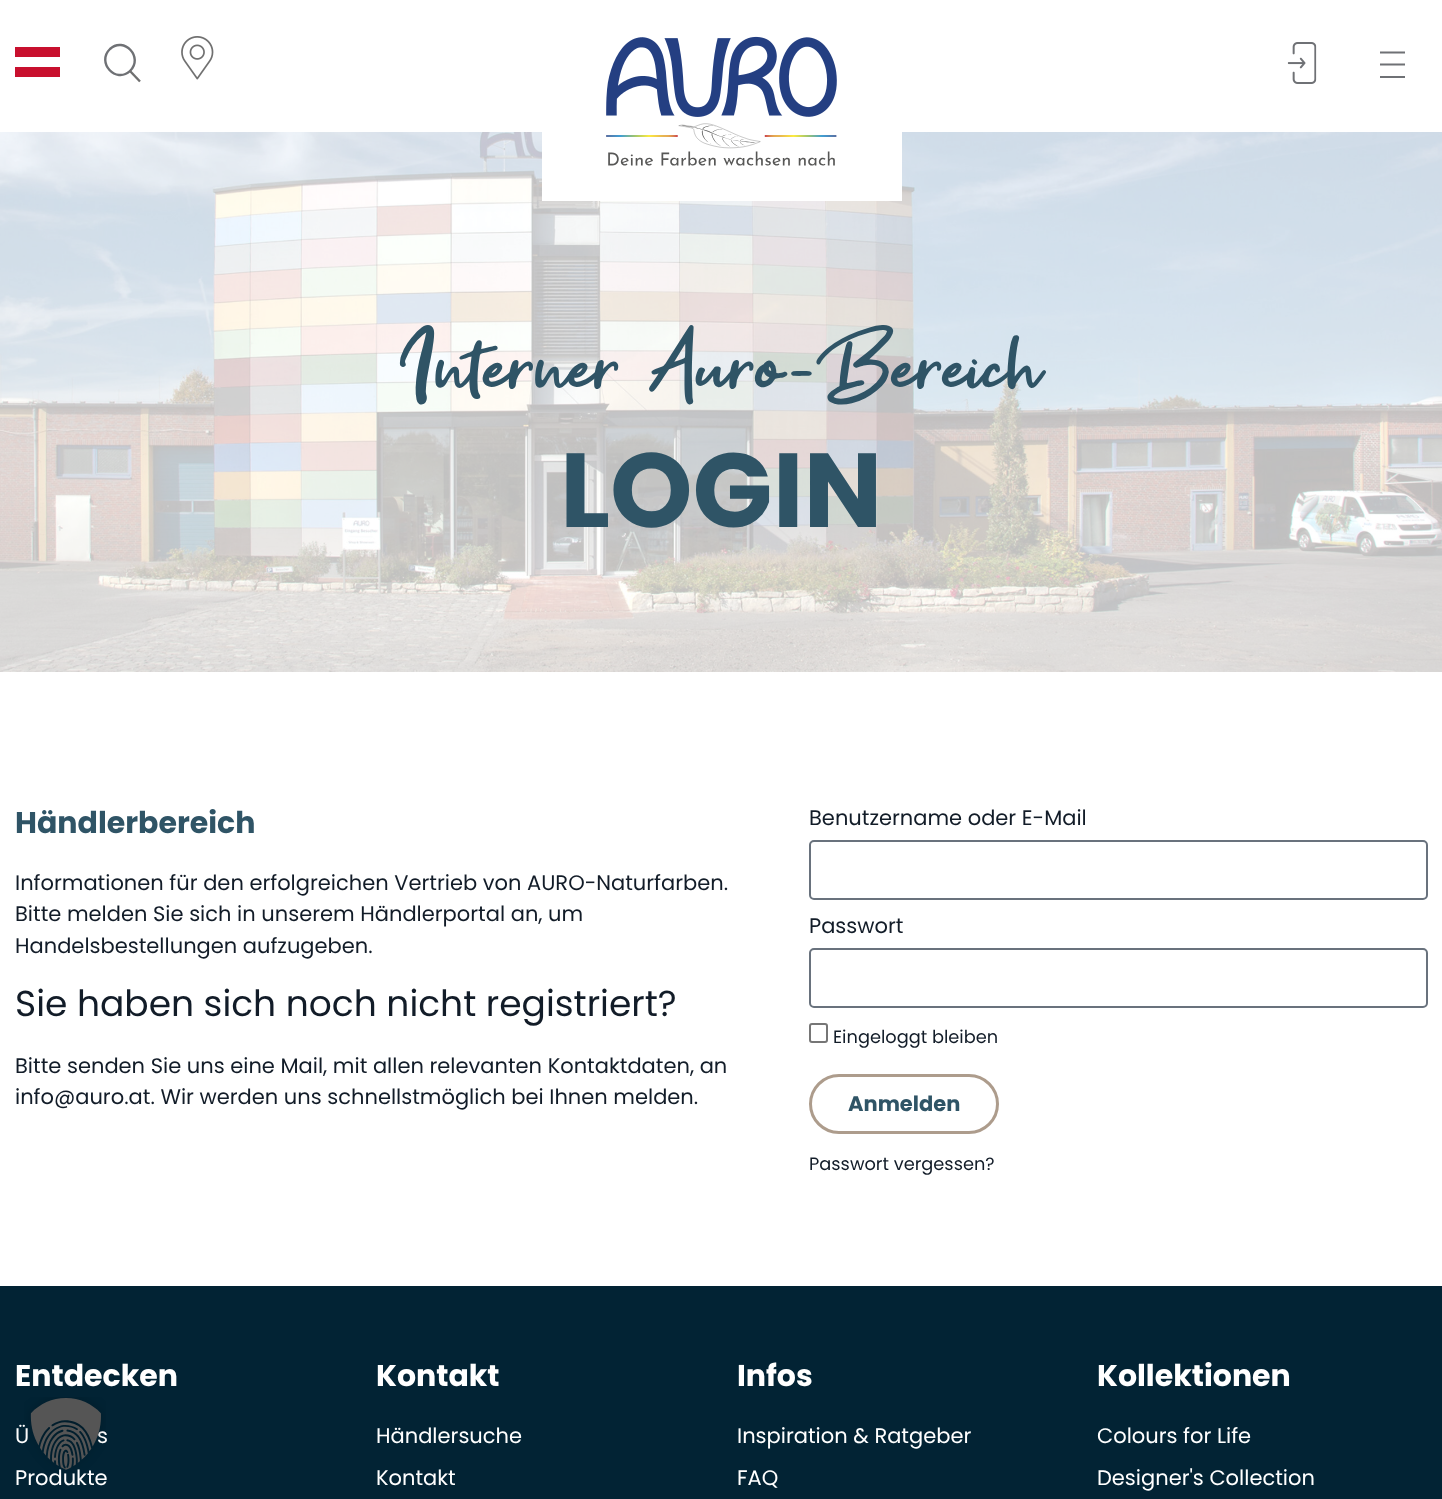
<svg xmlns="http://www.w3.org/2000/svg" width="1442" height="1499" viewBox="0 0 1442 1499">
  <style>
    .t1 { font: 105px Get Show; fill: #2f5466; }
    .t2 { font: bold 105px Poppins; fill: #2f5466; }
    .t3 { font: bold 30px Poppins; fill: #2f5466; }
    .t4 { font: 21px Poppins; fill: #121c28; }
    .t5 { font: 36px Poppins; fill: #121c28; }
    .t6 { font: 17.8px Poppins; fill: #121c28; }
    .t7 { font: bold 21px Poppins; fill: #2f5466; }
    .t8 { font: bold 30px Poppins; fill: #fff; }
    .t9 { font: 21px Poppins; fill: #fff; }
  </style>
  <defs>
    <clipPath id="clip1"><path d="M1380 87.5H1405V51H1380Z"/></clipPath>
  </defs>
  <rect width="100%" height="100%" fill="#fff"/>
  <rect x="15" y="47" width="45" height="30" fill="#c8102e"/>
  <rect x="15" y="57" width="45" height="10" fill="#fff"/>
  <path d="M110 49C124 36 144 57.5 130 71C116 84 96 62.5 110 49Z" fill="none" stroke="#6f7175" stroke-width="2.4"/>
  <path d="M140 81.5L129.5 70.5" fill="none" stroke="#707070" stroke-width="2.4"/>
  <image x="181" y="36" width="33" height="44" href="images/1.png"/>
  <image x="606" y="36" width="231" height="81" href="images/2.png"/>
  <image x="0" y="132" width="1442" height="540" href="images/5.png"/>
  <rect x="542" y="132" width="360" height="69" fill="#fff"/>
  <image x="606" y="123" width="231" height="43" href="images/3.png"/>
  <image x="1287" y="42" width="30" height="42" href="images/4.png"/>
  <g clip-path="url(#clip1)">
    <path d="M1380 52.5H1422M1380 64.5H1422" fill="none" stroke="#6f7175" stroke-width="2.1"/>
  </g>
  <rect x="1380" y="76" width="25" height="2" fill="#6f7175"/>
  <text x="400" y="404" class="t1">Interner Auro-Bereich</text>
  <text x="560" y="527" class="t2">LOGIN</text>
  <text x="15" y="833" class="t3">Händlerbereich</text>
  <text x="15" y="890" class="t4">Informationen für den erfolgreichen Vertrieb von AURO-Naturfarben.</text>
  <text x="15" y="921" class="t4">Bitte melden Sie sich in unserem Händlerportal an, um</text>
  <text x="15" y="953" class="t4">Handelsbestellungen aufzugeben.</text>
  <text x="15" y="1016" class="t5">Sie haben sich noch nicht registriert?</text>
  <text x="15" y="1073" class="t4">Bitte senden Sie uns eine Mail, mit allen relevanten Kontaktdaten, an</text>
  <text x="15" y="1104" class="t4">info@auro.at. Wir werden uns schnellstmöglich bei Ihnen melden.</text>
  <text x="809" y="825" class="t4">Benutzername oder E-Mail</text>
  <rect x="810" y="841" width="617" height="58" rx="4" fill="none" stroke="#69727d" stroke-width="2"/>
  <text x="809" y="933" class="t4">Passwort</text>
  <rect x="810" y="949" width="617" height="58" rx="4" fill="none" stroke="#69727d" stroke-width="2"/>
  <rect x="810" y="1024" width="17" height="18" rx="2" fill="none" stroke="#767676" stroke-width="2"/>
  <text x="833" y="1043" class="t6">Eingeloggt bleiben</text>
  <rect x="810.5" y="1075.5" width="187" height="57" rx="28.5" fill="none" stroke="#ad9c8c" stroke-width="3"/>
  <text x="848" y="1111" class="t7">Anmelden</text>
  <text x="809" y="1170" class="t6">Passwort vergessen?</text>
  <rect x="0" y="1286" width="1442" height="213" fill="#022334"/>
  <text x="15" y="1386" class="t8">Entdecken</text>
  <text x="15" y="1443" class="t9">Ü</text>
  <text x="97" y="1443" class="t9">s</text>
  <text x="15" y="1485" class="t9">Produkte</text>
  <text x="376" y="1386" class="t8">Kontakt</text>
  <text x="376" y="1443" class="t9">Händlersuche</text>
  <text x="376" y="1485" class="t9">Kontakt</text>
  <text x="737" y="1386" class="t8">Infos</text>
  <text x="737" y="1443" class="t9">Inspiration &amp; Ratgeber</text>
  <text x="737" y="1485" class="t9">FAQ</text>
  <text x="1097" y="1386" class="t8">Kollektionen</text>
  <text x="1097" y="1443" class="t9">Colours for Life</text>
  <text x="1097" y="1485" class="t9">Designer's Collection</text>
  <image x="24" y="1397" width="82" height="76" href="images/6.png"/>
</svg>
